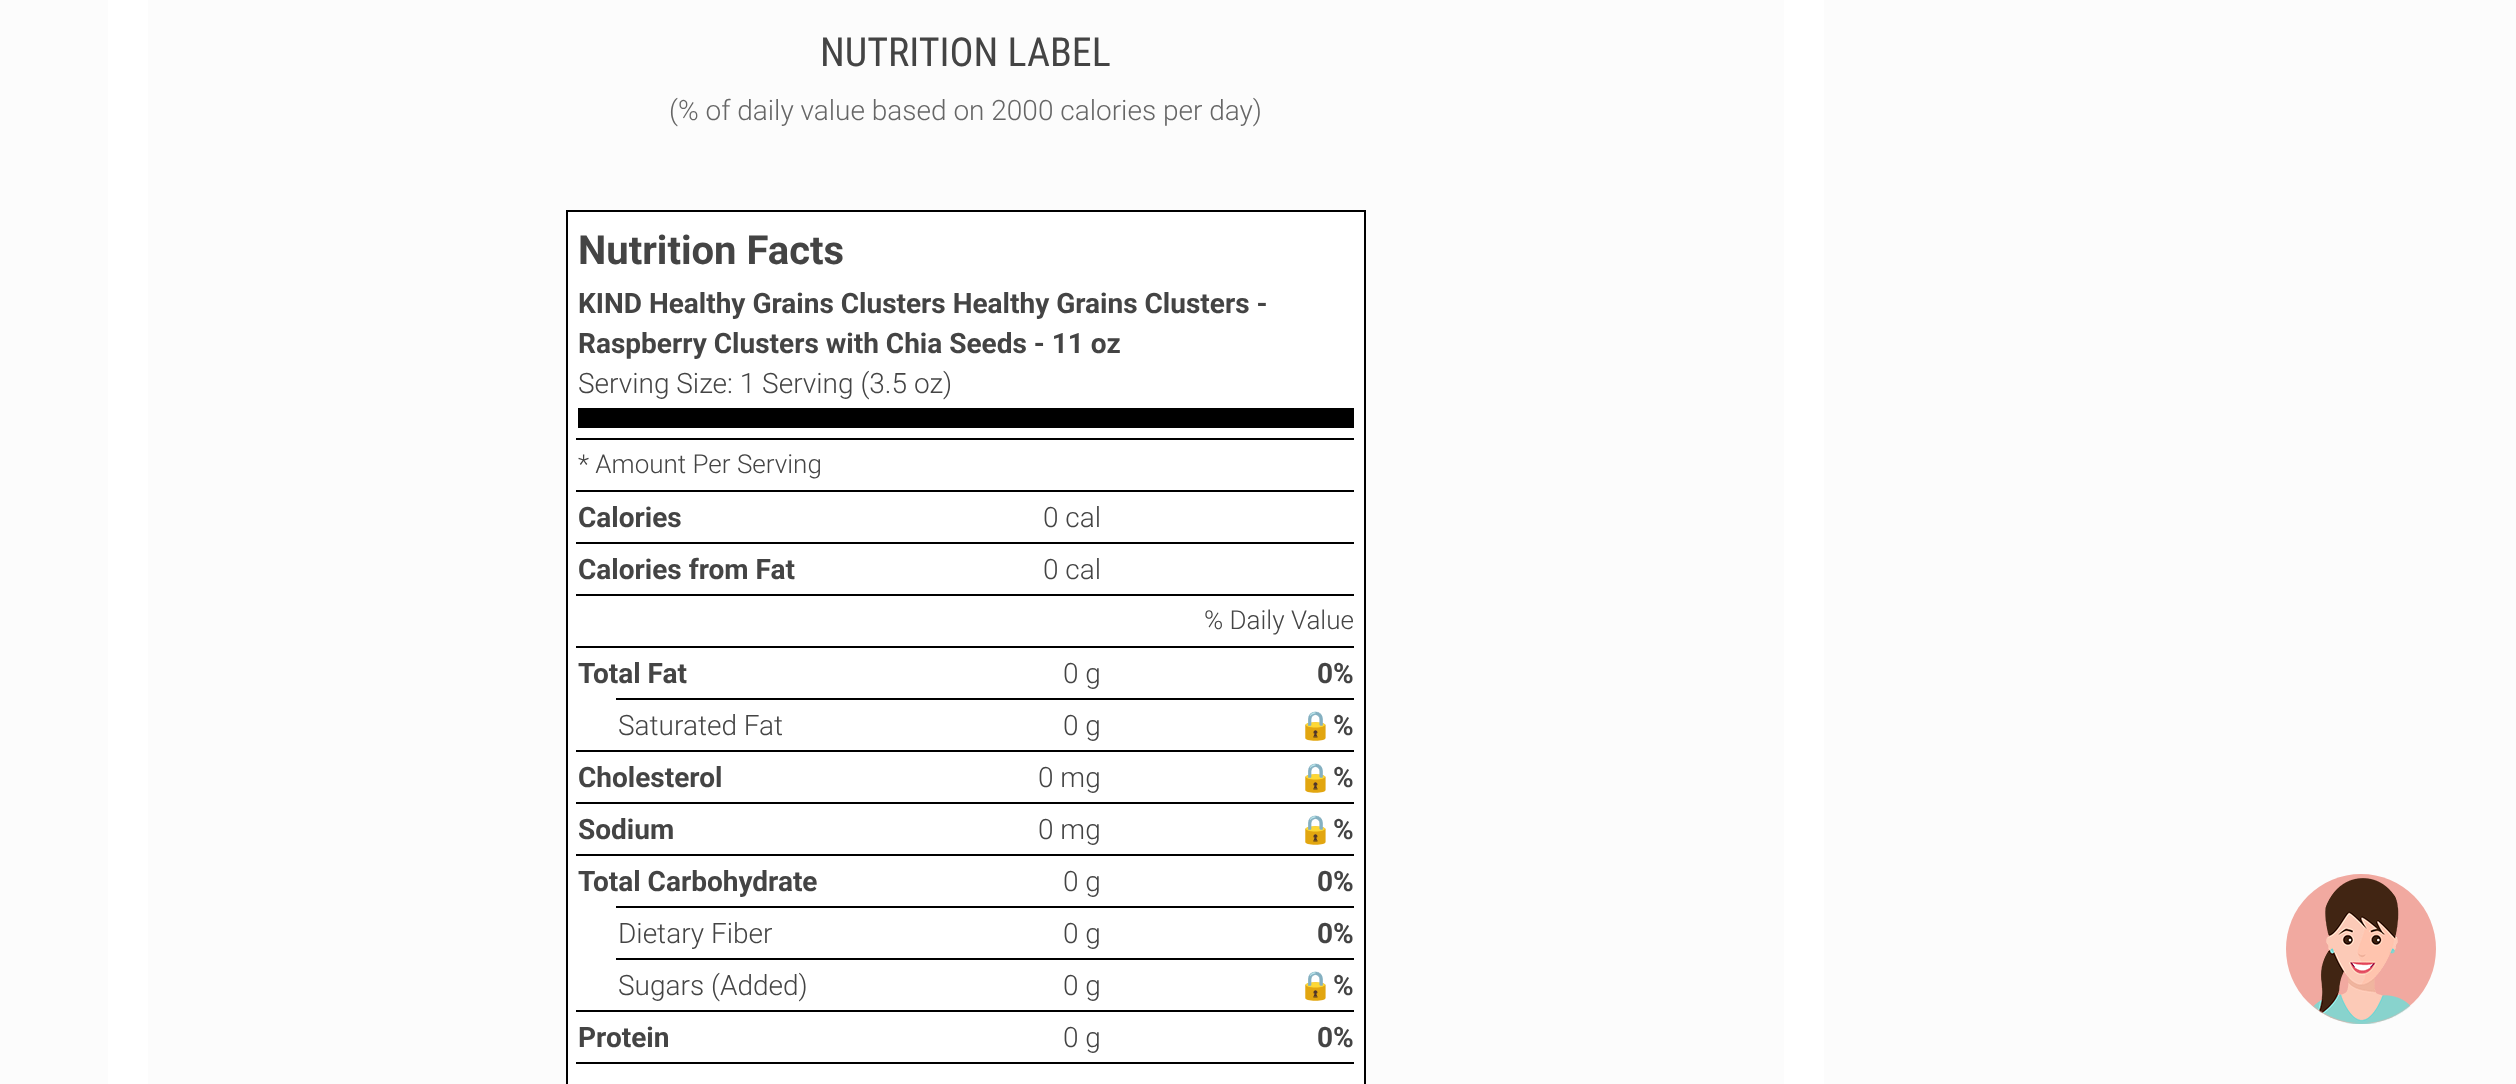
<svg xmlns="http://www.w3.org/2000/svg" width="2516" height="1084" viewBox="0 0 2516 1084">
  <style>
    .t1 { font: 40px Roboto Condensed; fill: #444; }
    .t2 { font: 300 28px Roboto; fill: #666; }
    .t3 { font: bold 40px Roboto; fill: #444; }
    .t4 { font: bold 28px Roboto; fill: #444; }
    .t5 { font: 300 28px Roboto; fill: #444; }
    .t6 { font: 300 26px Roboto; fill: #444; }
    .t7 { font: bold 28px Noto Color Emoji; fill: #444; }
    .t8 { font: 600 28px Roboto; fill: #444; }
  </style>
  <rect width="100%" height="100%" fill="#fcfcfc"/>
  <rect x="108" y="0" width="1716" height="1084" fill="#fff"/>
  <rect x="148" y="0" width="1636" height="1084" fill="#fcfcfc"/>
  <text x="820" y="66" class="t1">NUTRITION LABEL</text>
  <text x="669" y="120" class="t2">(% of daily value based on 2000 calories per day)</text>
  <rect x="567" y="211" width="798" height="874" fill="#fff" stroke="#000" stroke-width="2"/>
  <rect x="578" y="408" width="776" height="20" fill="#000"/>
  <text x="578" y="264" class="t3">Nutrition Facts</text>
  <text x="578" y="313" class="t4">KIND Healthy Grains Clusters Healthy Grains Clusters -</text>
  <text x="578" y="353" class="t4">Raspberry Clusters with Chia Seeds - 11 oz</text>
  <text x="578" y="393" class="t5">Serving Size: 1 Serving (3.5 oz)</text>
  <rect x="576" y="438" width="778" height="2" fill="#000"/>
  <text x="578" y="473" class="t6">* Amount Per Serving</text>
  <rect x="576" y="490" width="778" height="2" fill="#000"/>
  <text x="578" y="527" class="t4">Calories</text>
  <text x="1043" y="527" class="t5">0 cal</text>
  <rect x="576" y="542" width="778" height="2" fill="#000"/>
  <text x="578" y="579" class="t4">Calories from Fat</text>
  <text x="1043" y="579" class="t5">0 cal</text>
  <rect x="576" y="594" width="778" height="2" fill="#000"/>
  <text x="1204" y="629" class="t6">% Daily Value</text>
  <text x="578" y="683" class="t4">Total Fat</text>
  <text x="1063" y="683" class="t5">0 g</text>
  <rect x="576" y="646" width="778" height="2" fill="#000"/>
  <text x="1317" y="683" class="t4">0%</text>
  <text x="618" y="735" class="t5">Saturated Fat</text>
  <text x="1063" y="735" class="t5">0 g</text>
  <rect x="616" y="698" width="738" height="2" fill="#000"/>
  <text x="1298" y="735" class="t7">🔒</text>
  <text x="1333" y="735" class="t8">%</text>
  <text x="578" y="787" class="t4">Cholesterol</text>
  <text x="1038" y="787" class="t5">0 mg</text>
  <rect x="576" y="750" width="778" height="2" fill="#000"/>
  <text x="1298" y="787" class="t7">🔒</text>
  <text x="1333" y="787" class="t8">%</text>
  <text x="578" y="839" class="t4">Sodium</text>
  <text x="1038" y="839" class="t5">0 mg</text>
  <rect x="576" y="802" width="778" height="2" fill="#000"/>
  <text x="1298" y="839" class="t7">🔒</text>
  <text x="1333" y="839" class="t8">%</text>
  <text x="578" y="891" class="t4">Total Carbohydrate</text>
  <text x="1063" y="891" class="t5">0 g</text>
  <rect x="576" y="854" width="778" height="2" fill="#000"/>
  <text x="1317" y="891" class="t4">0%</text>
  <text x="618" y="943" class="t5">Dietary Fiber</text>
  <text x="1063" y="943" class="t5">0 g</text>
  <rect x="616" y="906" width="738" height="2" fill="#000"/>
  <text x="1317" y="943" class="t4">0%</text>
  <text x="618" y="995" class="t5">Sugars (Added)</text>
  <text x="1063" y="995" class="t5">0 g</text>
  <rect x="616" y="958" width="738" height="2" fill="#000"/>
  <text x="1298" y="995" class="t7">🔒</text>
  <text x="1333" y="995" class="t8">%</text>
  <text x="578" y="1047" class="t4">Protein</text>
  <text x="1063" y="1047" class="t5">0 g</text>
  <rect x="576" y="1010" width="778" height="2" fill="#000"/>
  <text x="1317" y="1047" class="t4">0%</text>
  <rect x="576" y="1062" width="778" height="2" fill="#000"/>
  <circle cx="2361" cy="949" r="75" fill="#f1a9a0"/>
  <image x="2313" y="878" width="98" height="146" href="images/1.png"/>
</svg>
